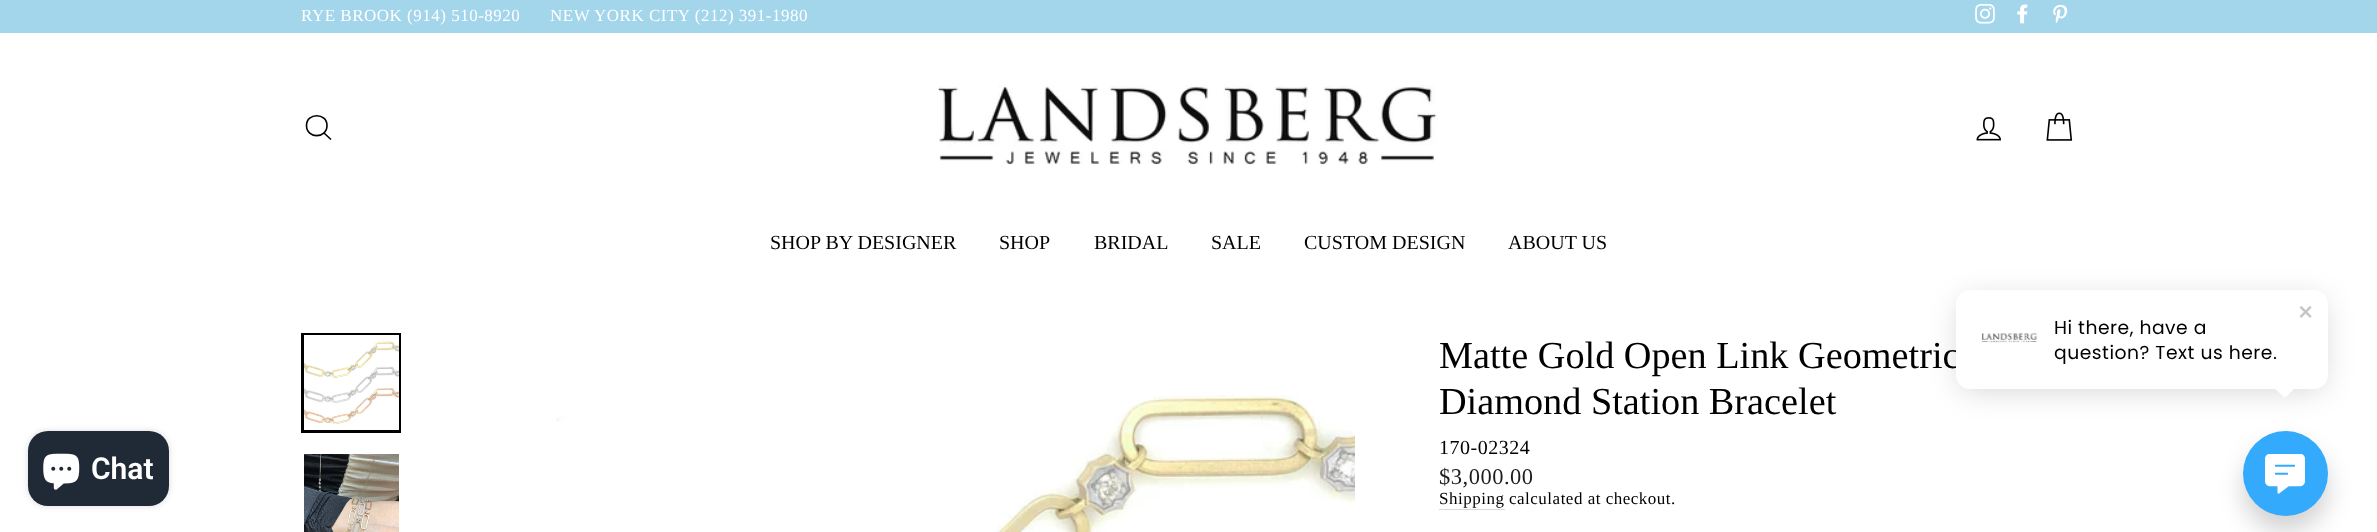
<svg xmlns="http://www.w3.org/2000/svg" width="2377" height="532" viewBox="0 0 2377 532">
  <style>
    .t1 { font: 17px Liberation Serif; letter-spacing: 0.5px; fill: #fff; }
    .t2 { font: 20px Liberation Serif; fill: #000; }
    .t3 { font: 38.25px Liberation Serif; fill: #000; }
    .t4 { font: 20px Liberation Serif; letter-spacing: 0.5px; fill: #000; }
    .t5 { font: 22.5px Liberation Serif; letter-spacing: 0.5px; fill: #1c1d1d; }
    .t6 { font: 17px Liberation Serif; letter-spacing: 0.5px; fill: #000; }
    .t7 { font: 18.75px Poppins; letter-spacing: 0.5px; fill: #000; }
    .t8 { font: 600 30px Roboto; fill: #fff; }
  </style>
  <rect width="100%" height="100%" fill="#fff"/>
  <rect x="0" y="0" width="2377" height="33" fill="#a3d5eb"/>
  <text x="301" y="21" class="t1">RYE BROOK (914) 510-8920</text>
  <text x="550" y="21" class="t1">NEW YORK CITY (212) 391-1980</text>
  <image x="1975" y="4" width="20" height="20" href="images/1.png"/>
  <image x="2017" y="4" width="11" height="20" href="images/2.png"/>
  <image x="2053" y="4" width="15" height="20" href="images/3.png"/>
  <rect x="0" y="33" width="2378" height="231" fill="#00000033" filter="blur(0.5px)"/>
  <rect x="0" y="33" width="2377" height="231" fill="#fff"/>
  <path d="M327 125.5C327 139 306.5 139 306.5 125.5C306.5 112.5 327 112.5 327 125.5ZM331 139.5L324 133" fill="none" stroke="#000" stroke-width="1.6"/>
  <image x="938" y="85" width="499" height="80" href="images/4.png"/>
  <image x="1976" y="117" width="25" height="24" href="images/5.png"/>
  <image x="2046" y="112" width="27" height="29" href="images/6.png"/>
  <text x="770" y="249" class="t2">SHOP BY DESIGNER</text>
  <text x="999" y="249" class="t2">SHOP</text>
  <text x="1094" y="249" class="t2">BRIDAL</text>
  <text x="1211" y="249" class="t2">SALE</text>
  <text x="1304" y="249" class="t2">CUSTOM DESIGN</text>
  <text x="1508" y="249" class="t2">ABOUT US</text>
  <rect x="302.5" y="334.5" width="97" height="97" fill="none" stroke="#000" stroke-width="3"/>
  <image x="304" y="335" width="95" height="95" href="images/7.png"/>
  <image x="304" y="454" width="95" height="78" href="images/8.png"/>
  <image x="556" y="395" width="799" height="137" href="images/9.png"/>
  <text x="1439" y="368" class="t3">Matte Gold Open Link Geometric</text>
  <text x="1439" y="414" class="t3">Diamond Station Bracelet</text>
  <text x="1439" y="454" class="t4">170-02324</text>
  <text x="1439" y="484" class="t5">$3,000.00</text>
  <rect x="1439" y="509" width="66" height="1" fill="#d9d9d9"/>
  <text x="1439" y="504" class="t6">Shipping</text>
  <text x="1509" y="504" class="t6">calculated at checkout.</text>
  <rect x="2243" y="446" width="85" height="85" rx="42.5" fill="#0000002e" filter="blur(12px)"/>
  <circle cx="2285.5" cy="473.5" r="42.5" fill="#33aafc"/>
  <rect x="1961" y="300" width="362" height="89" rx="9" fill="#0000002e" filter="blur(15px)"/>
  <rect x="1956" y="290" width="372" height="99" rx="14" fill="#fff"/>
  <image x="2299" y="306" width="13" height="12" href="images/10.png"/>
  <image x="1981" y="333" width="57" height="10" href="images/11.png"/>
  <text x="2054" y="334" class="t7">Hi there, have a</text>
  <text x="2054" y="359" class="t7">question? Text us here.</text>
  <path d="M2271 385L2281 394.5C2284.5 398 2285 398 2288.5 394.5L2298 385Z" fill="#fff" fill-rule="evenodd"/>
  <rect x="28" y="431" width="141" height="75" rx="20" fill="#00000026" filter="blur(3px)"/>
  <rect x="28" y="431" width="141" height="75" rx="20" fill="#202a36"/>
  <image x="43" y="453" width="37" height="37" href="images/12.png"/>
  <text x="91" y="479" class="t8">Chat</text>
  <image x="2265" y="454" width="40" height="40" href="images/13.png"/>
</svg>
